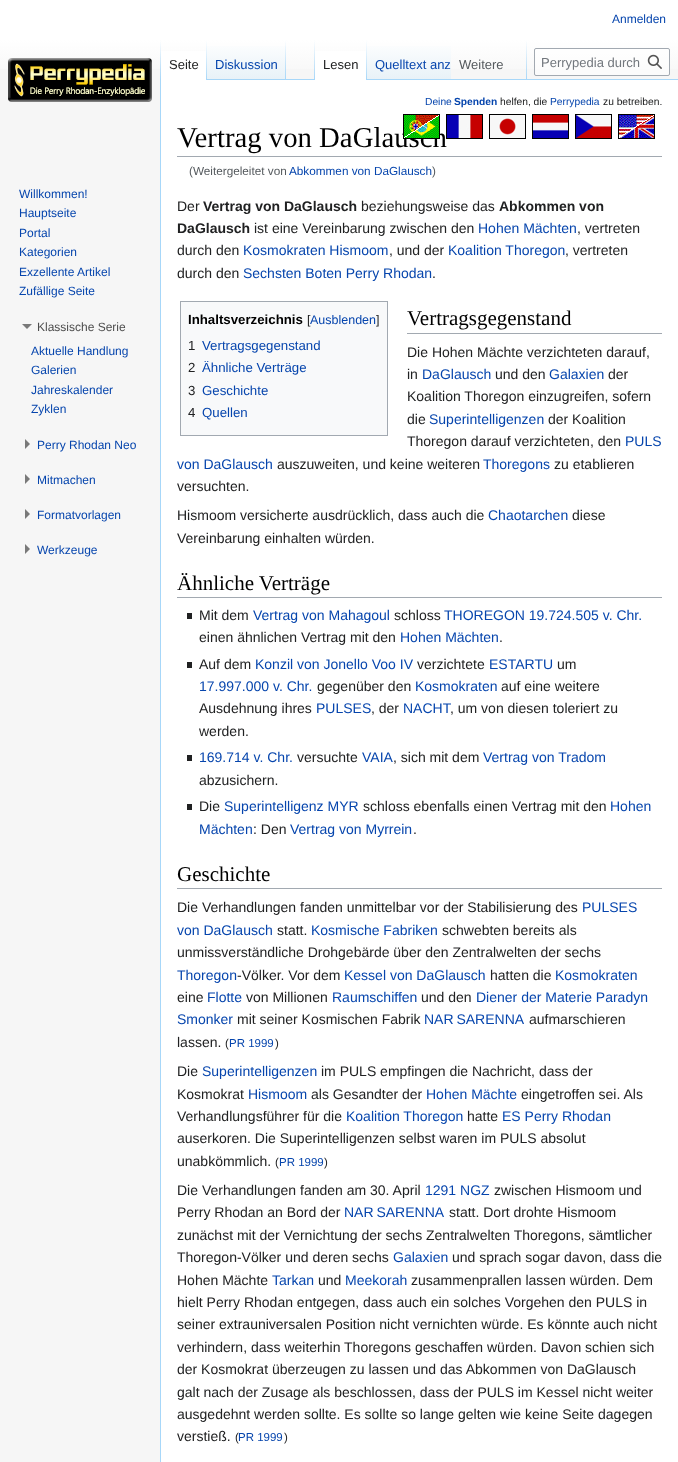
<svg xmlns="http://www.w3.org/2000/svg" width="678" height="1462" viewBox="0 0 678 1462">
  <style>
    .t1 { font: 12px Liberation Sans; fill: #0645ad; }
    .t2 { font: 13px Liberation Sans; fill: #202122; }
    .t3 { font: 13px Liberation Sans; fill: #0645ad; }
    .t4 { font: 13px Liberation Sans; fill: #54595d; }
    .t5 { font: 13px Liberation Sans; fill: #72777d; }
    .t6 { font: 12px Liberation Sans; fill: #4d4d4d; }
    .t7 { font: 10.25px Liberation Sans; fill: #0645ad; }
    .t8 { font: bold 10.25px Liberation Sans; fill: #0645ad; }
    .t9 { font: 10.25px Liberation Sans; fill: #202122; }
    .t10 { font: 28.75px Liberation Serif; fill: #000; }
    .t11 { font: 11.75px Liberation Sans; fill: #54595d; }
    .t12 { font: 11.75px Liberation Sans; fill: #0645ad; }
    .t13 { font: 14px Liberation Sans; fill: #202122; }
    .t14 { font: bold 14px Liberation Sans; fill: #202122; }
    .t15 { font: 14px Liberation Sans; fill: #0645ad; }
    .t16 { font: bold 13.25px Liberation Sans; fill: #000; }
    .t17 { font: 12.5px Liberation Sans; fill: #202122; }
    .t18 { font: 12.5px Liberation Sans; fill: #0645ad; }
    .t19 { font: 13.25px Liberation Sans; fill: #202122; }
    .t20 { font: 13.25px Liberation Sans; fill: #0645ad; }
    .t21 { font: 21px Liberation Serif; fill: #000; }
    .t22 { font: 11.5px Liberation Sans; fill: #202122; }
    .t23 { font: 11.5px Liberation Sans; fill: #0645ad; }
  </style>
  <defs>
    <linearGradient id="g1" gradientUnits="userSpaceOnUse" x1="339" y1="0" x2="339" y2="80"><stop offset="0.5" stop-color="#fff"/><stop offset="1" stop-color="#f6f6f6"/></linearGradient>
    <linearGradient id="g2" gradientUnits="userSpaceOnUse" x1="161" y1="40" x2="161" y2="80"><stop offset="0" stop-color="#a7d7f9" stop-opacity="0"/><stop offset="1" stop-color="#a7d7f9"/></linearGradient>
    <linearGradient id="g3" gradientUnits="userSpaceOnUse" x1="207" y1="40" x2="207" y2="80"><stop offset="0" stop-color="#fff"/><stop offset="1" stop-color="#a7d7f9"/></linearGradient>
    <linearGradient id="g4" gradientUnits="userSpaceOnUse" x1="247" y1="80" x2="247" y2="40"><stop offset="0" stop-color="#77c1f6"/><stop offset="0.03" stop-color="#e8f2f8"/><stop offset="1" stop-color="#fff"/></linearGradient>
    <linearGradient id="g5" gradientUnits="userSpaceOnUse" x1="286" y1="40" x2="286" y2="80"><stop offset="0" stop-color="#a7d7f9" stop-opacity="0"/><stop offset="1" stop-color="#a7d7f9"/></linearGradient>
    <linearGradient id="g6" gradientUnits="userSpaceOnUse" x1="315" y1="40" x2="315" y2="80"><stop offset="0" stop-color="#a7d7f9" stop-opacity="0"/><stop offset="1" stop-color="#a7d7f9"/></linearGradient>
    <linearGradient id="g7" gradientUnits="userSpaceOnUse" x1="367" y1="40" x2="367" y2="80"><stop offset="0" stop-color="#fff"/><stop offset="1" stop-color="#a7d7f9"/></linearGradient>
    <linearGradient id="g8" gradientUnits="userSpaceOnUse" x1="409" y1="80" x2="409" y2="40"><stop offset="0" stop-color="#77c1f6"/><stop offset="0.03" stop-color="#e8f2f8"/><stop offset="1" stop-color="#fff"/></linearGradient>
    <linearGradient id="g9" gradientUnits="userSpaceOnUse" x1="527" y1="40" x2="527" y2="80"><stop offset="0" stop-color="#a7d7f9" stop-opacity="0"/><stop offset="1" stop-color="#a7d7f9"/></linearGradient>
  </defs>
  <rect width="100%" height="100%" fill="#f6f6f6"/>
  <rect x="0" y="0" width="678" height="69" fill="url(#g1)"/>
  <text x="612" y="23" class="t1">Anmelden</text>
  <rect x="160" y="79" width="1" height="1383" fill="#a7d7f9"/>
  <rect x="160" y="40" width="1" height="40" fill="url(#g2)"/>
  <rect x="161" y="51" width="45" height="29" fill="#fff"/>
  <rect x="206" y="40" width="1" height="40" fill="url(#g3)"/>
  <text x="169" y="69" class="t2">Seite</text>
  <rect x="207" y="46" width="79" height="34" fill="url(#g4)"/>
  <rect x="285" y="40" width="1" height="40" fill="url(#g5)"/>
  <text x="215" y="69" class="t3">Diskussion</text>
  <rect x="286" y="79" width="392" height="1" fill="#a7d7f9"/>
  <rect x="314" y="40" width="1" height="40" fill="url(#g6)"/>
  <rect x="315" y="51" width="51" height="29" fill="#fff"/>
  <rect x="366" y="40" width="1" height="40" fill="url(#g7)"/>
  <text x="323" y="69" class="t2">Lesen</text>
  <rect x="367" y="46" width="84" height="33" fill="url(#g8)"/>
  <text x="375" y="69" class="t3">Quelltext anz</text>
  <rect x="526" y="40" width="1" height="40" fill="url(#g9)"/>
  <text x="459" y="69" class="t4">Weitere</text>
  <rect x="534.5" y="48.5" width="135" height="27" rx="1.5" fill="#ffffff80" stroke="#a2a9b1"/>
  <text x="541" y="67" class="t5">Perrypedia durch</text>
  <image x="647" y="54" width="15" height="15" href="images/1.png"/>
  <image x="8" y="58" width="144" height="44" href="images/2.png"/>
  <text x="19" y="198" class="t1">Willkommen!</text>
  <text x="19" y="217" class="t1">Hauptseite</text>
  <text x="19" y="237" class="t1">Portal</text>
  <text x="19" y="256" class="t1">Kategorien</text>
  <text x="19" y="276" class="t1">Exzellente Artikel</text>
  <text x="19" y="295" class="t1">Zufällige Seite</text>
  <path d="M32 324L27 329L22 324Z" fill="#797979"/>
  <text x="37" y="331" class="t6">Klassische Serie</text>
  <text x="31" y="355" class="t1">Aktuelle Handlung</text>
  <text x="31" y="374" class="t1">Galerien</text>
  <text x="31" y="394" class="t1">Jahreskalender</text>
  <text x="31" y="413" class="t1">Zyklen</text>
  <path d="M25 439L30 444L25 449Z" fill="#797979"/>
  <text x="37" y="449" class="t1">Perry Rhodan Neo</text>
  <path d="M25 474L30 479L25 484Z" fill="#797979"/>
  <text x="37" y="484" class="t1">Mitmachen</text>
  <path d="M25 509L30 514L25 519Z" fill="#797979"/>
  <text x="37" y="519" class="t1">Formatvorlagen</text>
  <path d="M25 544L30 549L25 554Z" fill="#797979"/>
  <text x="37" y="554" class="t1">Werkzeuge</text>
  <rect x="161" y="80" width="517" height="1382" fill="#fff"/>
  <text x="425" y="105" class="t7">Deine</text>
  <text x="454" y="105" class="t8">Spenden</text>
  <text x="500" y="105" class="t9">helfen, die</text>
  <text x="550" y="105" class="t7">Perrypedia</text>
  <text x="603" y="105" class="t9">zu betreiben.</text>
  <rect x="177" y="156" width="485" height="1" fill="#a2a9b1"/>
  <text x="177" y="147" class="t10">Vertrag von DaGlausch</text>
  <text x="189" y="175" class="t11">(Weitergeleitet von</text>
  <text x="289" y="175" class="t12">Abkommen von DaGlausch</text>
  <text x="432" y="175" class="t11">)</text>
  <image x="403" y="114" width="37" height="25" href="images/3.png"/>
  <image x="446" y="114" width="37" height="25" href="images/4.png"/>
  <image x="489" y="114" width="37" height="25" href="images/5.png"/>
  <image x="532" y="114" width="37" height="25" href="images/6.png"/>
  <image x="575" y="114" width="37" height="25" href="images/7.png"/>
  <image x="618" y="114" width="37" height="25" href="images/8.png"/>
  <text x="177" y="211" class="t13">Der</text>
  <text x="203" y="211" class="t14">Vertrag von DaGlausch</text>
  <text x="361" y="211" class="t13">beziehungsweise das</text>
  <text x="499" y="211" class="t14">Abkommen von</text>
  <text x="177" y="233" class="t14">DaGlausch</text>
  <text x="254" y="233" class="t13">ist eine Vereinbarung zwischen den</text>
  <text x="478" y="233" class="t15">Hohen Mächten</text>
  <text x="577" y="233" class="t13">, vertreten</text>
  <text x="177" y="255" class="t13">durch den</text>
  <text x="243" y="255" class="t15">Kosmokraten Hismoom</text>
  <text x="389" y="255" class="t13">, und der</text>
  <text x="448" y="255" class="t15">Koalition Thoregon</text>
  <text x="565" y="255" class="t13">, vertreten</text>
  <text x="177" y="278" class="t13">durch den</text>
  <text x="243" y="278" class="t15">Sechsten Boten Perry Rhodan</text>
  <text x="432" y="278" class="t13">.</text>
  <rect x="180.5" y="301.5" width="207" height="134" fill="#f8f9fa" stroke="#a2a9b1"/>
  <text x="188" y="324" class="t16">Inhaltsverzeichnis</text>
  <text x="307" y="324" class="t17">[</text>
  <text x="310" y="324" class="t18">Ausblenden</text>
  <text x="376" y="324" class="t17">]</text>
  <text x="188" y="350" class="t19">1</text>
  <text x="202" y="350" class="t20">Vertragsgegenstand</text>
  <text x="188" y="372" class="t19">2</text>
  <text x="202" y="372" class="t20">Ähnliche Verträge</text>
  <text x="188" y="395" class="t19">3</text>
  <text x="202" y="395" class="t20">Geschichte</text>
  <text x="188" y="417" class="t19">4</text>
  <text x="202" y="417" class="t20">Quellen</text>
  <rect x="407" y="333" width="255" height="1" fill="#a2a9b1"/>
  <text x="407" y="325" class="t21">Vertragsgegenstand</text>
  <text x="407" y="357" class="t13">Die Hohen Mächte verzichteten darauf,</text>
  <text x="407" y="379" class="t13">in</text>
  <text x="422" y="379" class="t15">DaGlausch</text>
  <text x="495" y="379" class="t13">und den</text>
  <text x="549" y="379" class="t15">Galaxien</text>
  <text x="608" y="379" class="t13">der</text>
  <text x="407" y="401" class="t13">Koalition Thoregon einzugreifen, sofern</text>
  <text x="407" y="424" class="t13">die</text>
  <text x="429" y="424" class="t15">Superintelligenzen</text>
  <text x="548" y="424" class="t13">der Koalition</text>
  <text x="407" y="446" class="t13">Thoregon darauf verzichteten, den</text>
  <text x="625" y="446" class="t15">PULS</text>
  <text x="177" y="469" class="t15">von DaGlausch</text>
  <text x="277" y="469" class="t13">auszuweiten, und keine weiteren</text>
  <text x="483" y="469" class="t15">Thoregons</text>
  <text x="554" y="469" class="t13">zu etablieren</text>
  <text x="177" y="491" class="t13">versuchten.</text>
  <text x="177" y="520" class="t13">Hismoom versicherte ausdrücklich, dass auch die</text>
  <text x="488" y="520" class="t15">Chaotarchen</text>
  <text x="572" y="520" class="t13">diese</text>
  <text x="177" y="543" class="t13">Vereinbarung einhalten würden.</text>
  <rect x="177" y="597" width="485" height="1" fill="#a2a9b1"/>
  <text x="177" y="590" class="t21">Ähnliche Verträge</text>
  <rect x="187" y="613" width="5" height="6" fill="#202122"/>
  <text x="199" y="620" class="t13">Mit dem</text>
  <text x="253" y="620" class="t15">Vertrag von Mahagoul</text>
  <text x="394" y="620" class="t13">schloss</text>
  <text x="444" y="620" class="t15">THOREGON 19.724.505 v. Chr.</text>
  <text x="199" y="642" class="t13">einen ähnlichen Vertrag mit den</text>
  <text x="400" y="642" class="t15">Hohen Mächten</text>
  <text x="499" y="642" class="t13">.</text>
  <rect x="187" y="662" width="5" height="6" fill="#202122"/>
  <text x="199" y="669" class="t13">Auf dem</text>
  <text x="255" y="669" class="t15">Konzil von Jonello Voo IV</text>
  <text x="417" y="669" class="t13">verzichtete</text>
  <text x="489" y="669" class="t15">ESTARTU</text>
  <text x="557" y="669" class="t13">um</text>
  <text x="199" y="691" class="t15">17.997.000 v. Chr.</text>
  <text x="317" y="691" class="t13">gegenüber den</text>
  <text x="415" y="691" class="t15">Kosmokraten</text>
  <text x="501" y="691" class="t13">auf eine weitere</text>
  <text x="199" y="713" class="t13">Ausdehnung ihres</text>
  <text x="316" y="713" class="t15">PULSES</text>
  <text x="371" y="713" class="t13">, der</text>
  <text x="403" y="713" class="t15">NACHT</text>
  <text x="450" y="713" class="t13">, um von diesen toleriert zu</text>
  <text x="199" y="736" class="t13">werden.</text>
  <rect x="187" y="755" width="5" height="6" fill="#202122"/>
  <text x="199" y="762" class="t15">169.714 v. Chr.</text>
  <text x="297" y="762" class="t13">versuchte</text>
  <text x="362" y="762" class="t15">VAIA</text>
  <text x="393" y="762" class="t13">, sich mit dem</text>
  <text x="483" y="762" class="t15">Vertrag von Tradom</text>
  <text x="199" y="785" class="t13">abzusichern.</text>
  <rect x="187" y="804" width="5" height="6" fill="#202122"/>
  <text x="199" y="811" class="t13">Die</text>
  <text x="224" y="811" class="t15">Superintelligenz MYR</text>
  <text x="363" y="811" class="t13">schloss ebenfalls einen Vertrag mit den</text>
  <text x="610" y="811" class="t15">Hohen</text>
  <text x="199" y="834" class="t15">Mächten</text>
  <text x="253" y="834" class="t13">: Den</text>
  <text x="290" y="834" class="t15">Vertrag von Myrrein</text>
  <text x="413" y="834" class="t13">.</text>
  <rect x="177" y="888" width="485" height="1" fill="#a2a9b1"/>
  <text x="177" y="881" class="t21">Geschichte</text>
  <text x="177" y="912" class="t13">Die Verhandlungen fanden unmittelbar vor der Stabilisierung des</text>
  <text x="582" y="912" class="t15">PULSES</text>
  <text x="177" y="935" class="t15">von DaGlausch</text>
  <text x="277" y="935" class="t13">statt.</text>
  <text x="311" y="935" class="t15">Kosmische Fabriken</text>
  <text x="442" y="935" class="t13">schwebten bereits als</text>
  <text x="177" y="957" class="t13">unmissverständliche Drohgebärde über den Zentralwelten der sechs</text>
  <text x="177" y="980" class="t15">Thoregon</text>
  <text x="237" y="980" class="t13">-Völker. Vor dem</text>
  <text x="344" y="980" class="t15">Kessel von DaGlausch</text>
  <text x="490" y="980" class="t13">hatten die</text>
  <text x="555" y="980" class="t15">Kosmokraten</text>
  <text x="177" y="1002" class="t13">eine</text>
  <text x="207" y="1002" class="t15">Flotte</text>
  <text x="246" y="1002" class="t13">von Millionen</text>
  <text x="332" y="1002" class="t15">Raumschiffen</text>
  <text x="421" y="1002" class="t13">und den</text>
  <text x="476" y="1002" class="t15">Diener der Materie Paradyn</text>
  <text x="177" y="1024" class="t15">Smonker</text>
  <text x="237" y="1024" class="t13">mit seiner Kosmischen Fabrik</text>
  <text x="424" y="1024" word-spacing="-1" class="t15">NAR SARENNA</text>
  <text x="529" y="1024" class="t13">aufmarschieren</text>
  <text x="177" y="1047" class="t13">lassen.</text>
  <text x="225" y="1047" class="t22">(</text>
  <text x="229" y="1047" class="t23">PR 1999</text>
  <text x="275" y="1047" class="t22">)</text>
  <text x="177" y="1076" class="t13">Die</text>
  <text x="202" y="1076" class="t15">Superintelligenzen</text>
  <text x="321" y="1076" class="t13">im PULS empfingen die Nachricht, dass der</text>
  <text x="177" y="1099" class="t13">Kosmokrat</text>
  <text x="248" y="1099" class="t15">Hismoom</text>
  <text x="311" y="1099" class="t13">als Gesandter der</text>
  <text x="426" y="1099" class="t15">Hohen Mächte</text>
  <text x="521" y="1099" class="t13">eingetroffen sei. Als</text>
  <text x="177" y="1121" class="t13">Verhandlungsführer für die</text>
  <text x="346" y="1121" class="t15">Koalition Thoregon</text>
  <text x="467" y="1121" class="t13">hatte</text>
  <text x="502" y="1121" class="t15">ES Perry Rhodan</text>
  <text x="177" y="1143" class="t13">auserkoren. Die Superintelligenzen selbst waren im PULS absolut</text>
  <text x="177" y="1166" class="t13">unabkömmlich.</text>
  <text x="275" y="1166" class="t22">(</text>
  <text x="279" y="1166" class="t23">PR 1999</text>
  <text x="324" y="1166" class="t22">)</text>
  <text x="177" y="1195" class="t13">Die Verhandlungen fanden am 30. April</text>
  <text x="425" y="1195" class="t15">1291 NGZ</text>
  <text x="494" y="1195" class="t13">zwischen Hismoom und</text>
  <text x="177" y="1217" class="t13">Perry Rhodan an Bord der</text>
  <text x="344" y="1217" word-spacing="-1" class="t15">NAR SARENNA</text>
  <text x="449" y="1217" class="t13">statt. Dort drohte Hismoom</text>
  <text x="177" y="1240" class="t13">zunächst mit der Vernichtung der sechs Zentralwelten Thoregons, sämtlicher</text>
  <text x="177" y="1262" class="t13">Thoregon-Völker und deren sechs</text>
  <text x="393" y="1262" class="t15">Galaxien</text>
  <text x="452" y="1262" class="t13">und sprach sogar davon, dass die</text>
  <text x="177" y="1285" class="t13">Hohen Mächte</text>
  <text x="272" y="1285" class="t15">Tarkan</text>
  <text x="318" y="1285" class="t13">und</text>
  <text x="345" y="1285" class="t15">Meekorah</text>
  <text x="411" y="1285" class="t13">zusammenprallen lassen würden. Dem</text>
  <text x="177" y="1307" class="t13">hielt Perry Rhodan entgegen, dass auch ein solches Vorgehen den PULS in</text>
  <text x="177" y="1329" class="t13">seiner extrauniversalen Position nicht vernichten würde. Es könnte auch nicht</text>
  <text x="177" y="1352" class="t13">verhindern, dass weiterhin Thoregons geschaffen würden. Davon schien sich</text>
  <text x="177" y="1374" class="t13">der Kosmokrat überzeugen zu lassen und das Abkommen von DaGlausch</text>
  <text x="177" y="1397" class="t13">galt nach der Zusage als beschlossen, dass der PULS im Kessel nicht weiter</text>
  <text x="177" y="1419" class="t13">ausgedehnt werden sollte. Es sollte so lange gelten wie keine Seite dagegen</text>
  <text x="177" y="1441" class="t13">verstieß.</text>
  <text x="235" y="1441" class="t22">(</text>
  <text x="238" y="1441" class="t23">PR 1999</text>
  <text x="284" y="1441" class="t22">)</text>
</svg>
